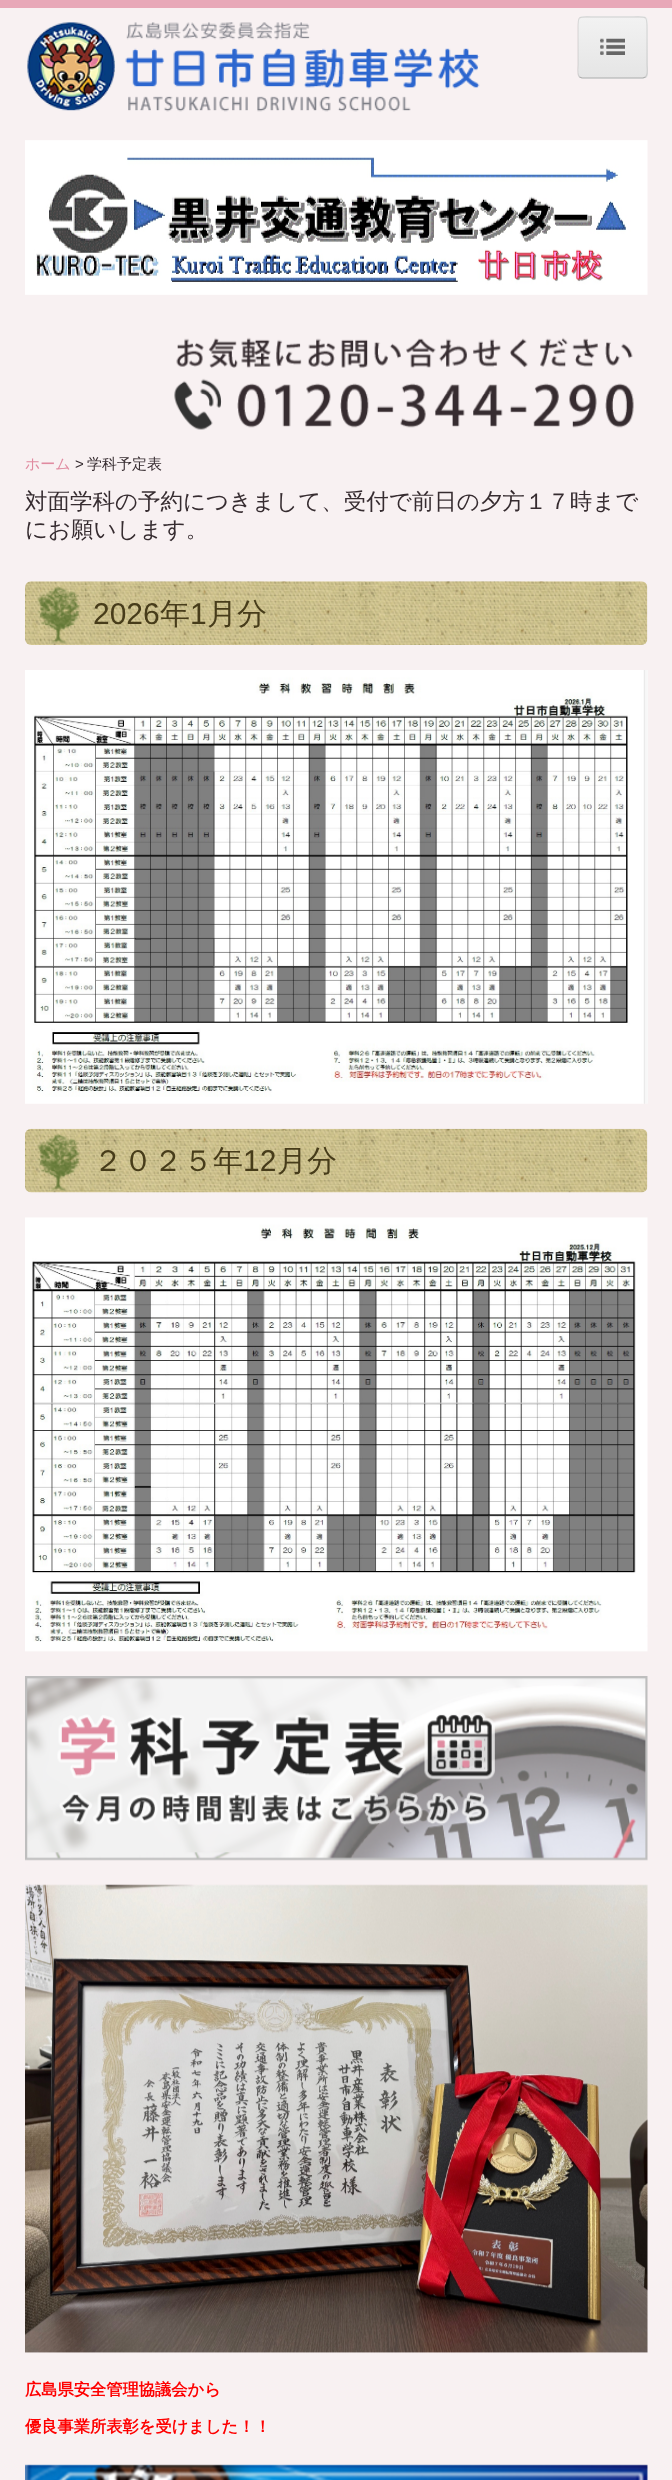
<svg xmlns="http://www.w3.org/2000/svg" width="672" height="2480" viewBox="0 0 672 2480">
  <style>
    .t1 { font: 500 15px WenQuanYi Zen Hei; fill: #e08ba0; }
    .t2 { font: 15px Liberation Sans; fill: #362c30; }
    .t3 { font: 500 15px WenQuanYi Zen Hei; fill: #362c30; }
    .t4 { font: 500 22.5px WenQuanYi Zen Hei; fill: #362c30; }
    .t5 { font: 30px Liberation Sans; fill: #473c1a; }
    .t6 { font: 500 30px WenQuanYi Zen Hei; fill: #473c1a; }
    .t7 { font: bold 16.25px WenQuanYi Zen Hei; fill: #fe0000; }
  </style>
  <defs>
    <clipPath id="clip1"><rect x="578" y="16" width="70" height="63" rx="5"/></clipPath>
    <linearGradient id="g1" gradientUnits="userSpaceOnUse" x1="613" y1="17" x2="613" y2="78"><stop offset="0" stop-color="#f2f2f2"/><stop offset="1" stop-color="#e5e5e5"/></linearGradient>
  </defs>
  <rect width="100%" height="100%" fill="#f8f1f2"/>
  <rect x="0" y="0" width="672" height="8" fill="#e8a8b8"/>
  <rect x="578" y="16" width="70" height="63" rx="5" fill="#ededed"/>
  <g clip-path="url(#clip1)">
    <rect x="578" y="18" width="70" height="60" fill="url(#g1)"/>
  </g>
  <path d="M645.5 77L643 78H582L579.5 77" fill="none" stroke="#00000040" stroke-width="1.2"/>
  <path d="M579.5 77C576.5 74 578 67 578 65V30C578 15 577.5 17 592.5 17H632.5C647.5 17 647 15 647 30V65C647 67 648.5 74 645.5 77" fill="none" stroke="#0000001a" stroke-width="1.2"/>
  <image x="600" y="38" width="25" height="17" href="images/1.png"/>
  <image x="27" y="22" width="453" height="90" href="images/2.png"/>
  <image x="25" y="140" width="623" height="155" href="images/3.png"/>
  <image x="174" y="337" width="460" height="93" href="images/4.png"/>
  <text x="25" y="469" class="t1">ホーム</text>
  <text x="75" y="469" class="t2">&gt;</text>
  <text x="87" y="469" class="t3">学科予定表</text>
  <text x="25" y="509" class="t4">対面学科の予約につきまして、受付で前日の夕方１７時まで</text>
  <text x="25" y="537" class="t4">にお願いします。</text>
  <image x="25" y="581" width="623" height="64" href="images/5.png"/>
  <text x="93" y="624" class="t5">2026</text>
  <text x="160" y="624" class="t6">年</text>
  <text x="190" y="624" class="t5">1</text>
  <text x="207" y="624" class="t6">月分</text>
  <image x="25" y="670" width="623" height="434" href="images/6.png"/>
  <image x="25" y="1128" width="623" height="65" href="images/7.png"/>
  <text x="93" y="1171" class="t6">２０２５年</text>
  <text x="243" y="1171" class="t5">12</text>
  <text x="277" y="1171" class="t6">月分</text>
  <image x="25" y="1217" width="623" height="435" href="images/8.png"/>
  <image x="25" y="1676" width="623" height="185" href="images/9.png"/>
  <image x="25" y="1884" width="623" height="469" href="images/10.png"/>
  <text x="25" y="2395" class="t7">広島県安全管理協議会から</text>
  <text x="25" y="2432" class="t7">優良事業所表彰を受けました！！</text>
  <image x="25" y="2464" width="623" height="16" href="images/11.png"/>
</svg>
